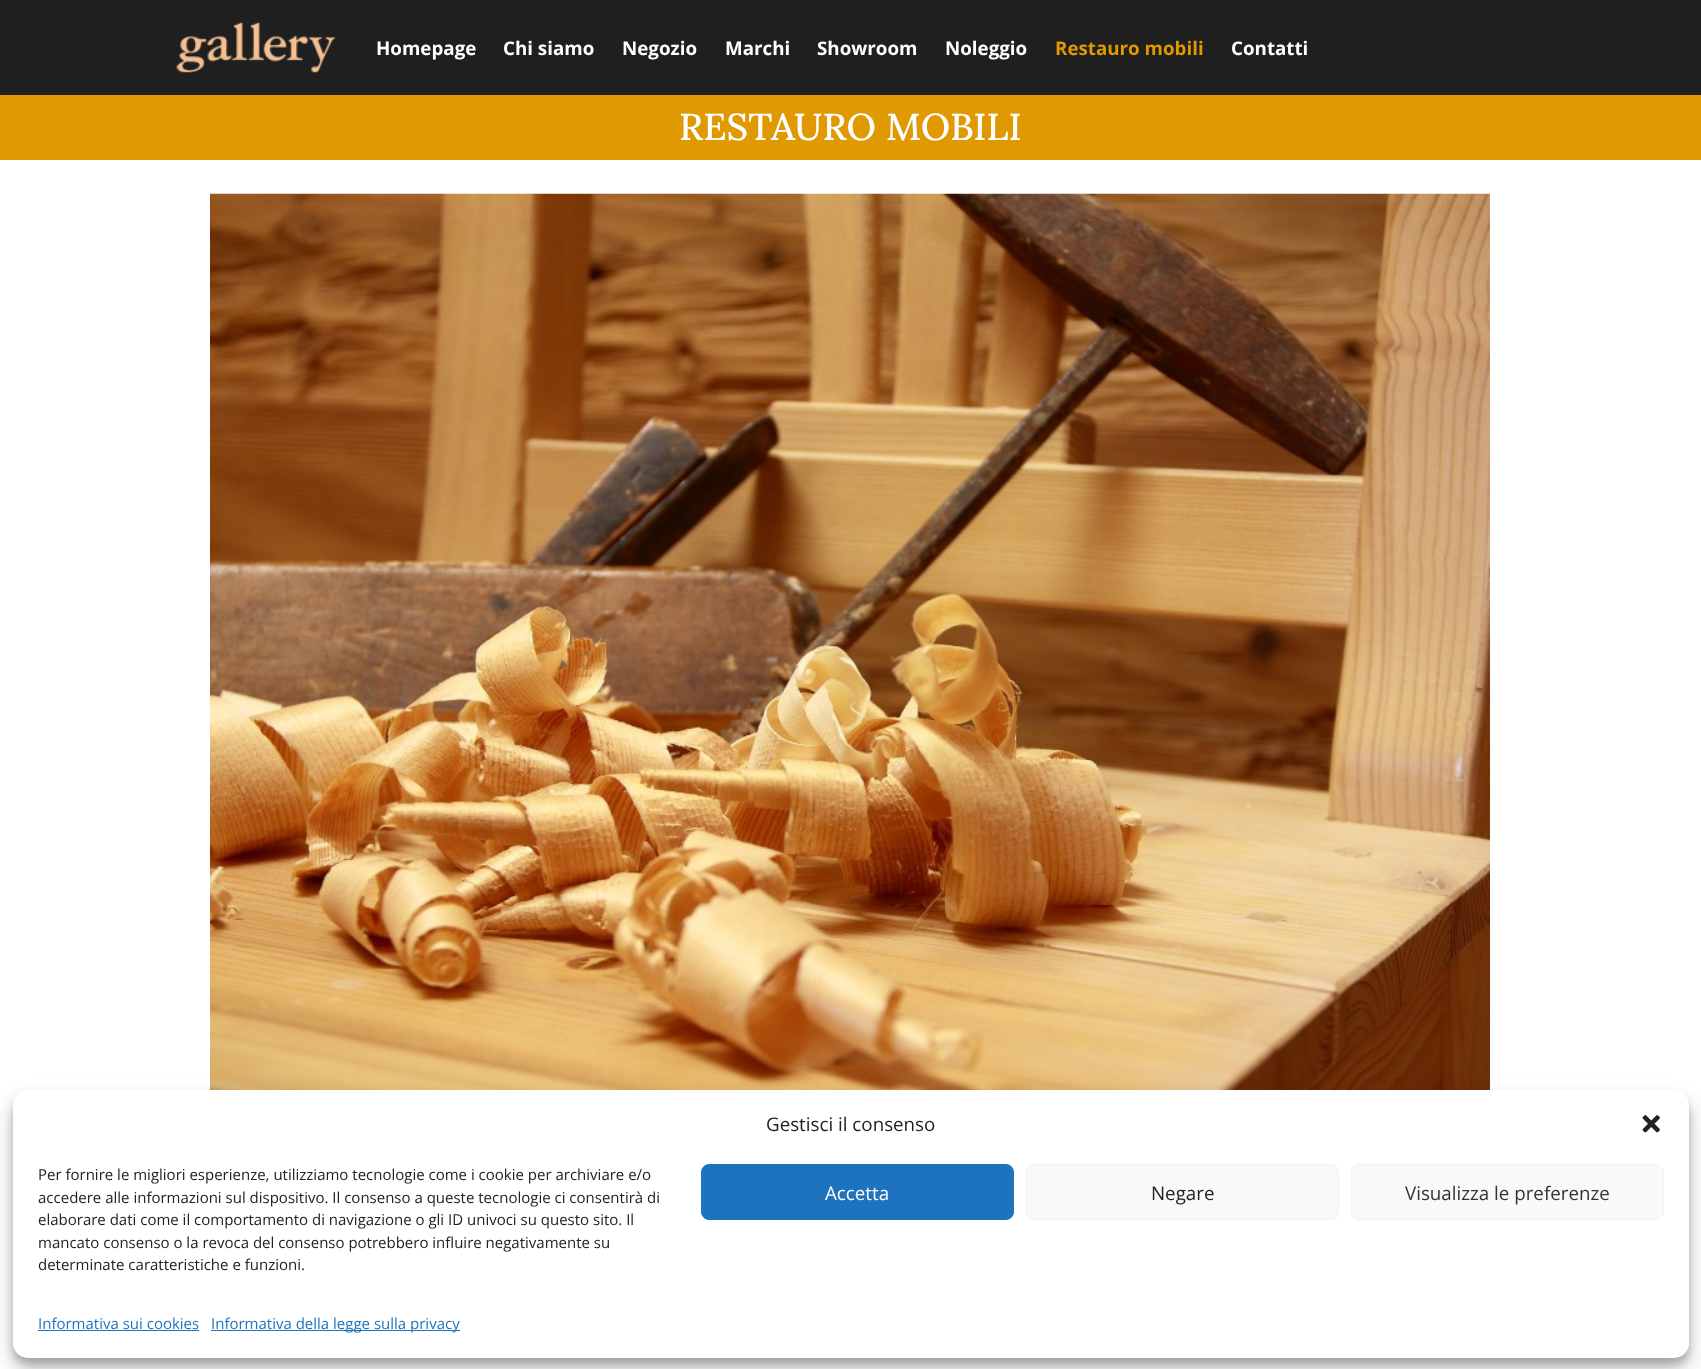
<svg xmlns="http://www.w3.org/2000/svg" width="1701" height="1369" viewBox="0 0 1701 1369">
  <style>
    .t1 { font: bold 18.75px Open Sans; fill: #fff; }
    .t2 { font: bold 18.75px Open Sans; fill: #e09900; }
    .t3 { font: 500 37.5px Lora; fill: #fff; }
    .t4 { font: 18.75px Open Sans; fill: #222; }
    .t5 { font: 15px Open Sans; fill: #222; }
    .t6 { font: 18.75px Open Sans; fill: #fff; }
    .t7 { font: 18.75px Open Sans; fill: #333; }
    .t8 { font: 15px Open Sans; fill: #1e73be; }
  </style>
  <rect width="100%" height="100%" fill="#fff"/>
  <rect x="0" y="0" width="1701" height="95" fill="#1f1f1f"/>
  <image x="176" y="22" width="160" height="51" href="images/1.png"/>
  <text x="376" y="55" class="t1">Homepage</text>
  <text x="503" y="55" class="t1">Chi siamo</text>
  <text x="622" y="55" class="t1">Negozio</text>
  <text x="725" y="55" class="t1">Marchi</text>
  <text x="817" y="55" class="t1">Showroom</text>
  <text x="945" y="55" class="t1">Noleggio</text>
  <text x="1055" y="55" class="t2">Restauro mobili</text>
  <text x="1231" y="55" class="t1">Contatti</text>
  <rect x="0" y="95" width="1701" height="65" fill="#e09900"/>
  <text x="679" y="140" class="t3">RESTAURO MOBILI</text>
  <image x="210" y="193" width="1280" height="897" href="images/2.png"/>
  <rect x="13" y="1098" width="1676" height="267" rx="15" fill="#0000003b" filter="blur(4px)"/>
  <rect x="13" y="1103" width="1676" height="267" rx="15" fill="#00000030" filter="blur(12.5px)"/>
  <rect x="13" y="1090" width="1676" height="268" rx="15" fill="#fff"/>
  <text x="766" y="1131" class="t4">Gestisci il consenso</text>
  <image x="1642" y="1115" width="18" height="18" href="images/3.png"/>
  <text x="38" y="1180" class="t5">Per fornire le migliori esperienze, utilizziamo tecnologie come i cookie per archiviare e/o</text>
  <text x="38" y="1203" class="t5">accedere alle informazioni sul dispositivo. Il consenso a queste tecnologie ci consentirà di</text>
  <text x="38" y="1225" class="t5">elaborare dati come il comportamento di navigazione o gli ID univoci su questo sito. Il</text>
  <text x="38" y="1248" class="t5">mancato consenso o la revoca del consenso potrebbero influire negativamente su</text>
  <text x="38" y="1270" class="t5">determinate caratteristiche e funzioni.</text>
  <rect x="701.5" y="1164.5" width="312" height="55" rx="7.5" fill="#1e73be" stroke="#1e73be"/>
  <text x="825" y="1200" class="t6">Accetta</text>
  <rect x="1026.5" y="1164.5" width="312" height="55" rx="7.5" fill="#f9f9f9" stroke="#f2f2f2"/>
  <text x="1151" y="1200" class="t4">Negare</text>
  <rect x="1351.5" y="1164.5" width="312" height="55" rx="7.5" fill="#f9f9f9" stroke="#f2f2f2"/>
  <text x="1405" y="1200" class="t7">Visualizza le preferenze</text>
  <text x="38" y="1329" class="t8">Informativa sui cookies</text>
  <rect x="38" y="1330" width="161" height="1" fill="#1e73be"/>
  <rect x="211" y="1330" width="249" height="1" fill="#1e73be"/>
  <text x="211" y="1329" class="t8">Informativa della legge sulla privacy</text>
</svg>
